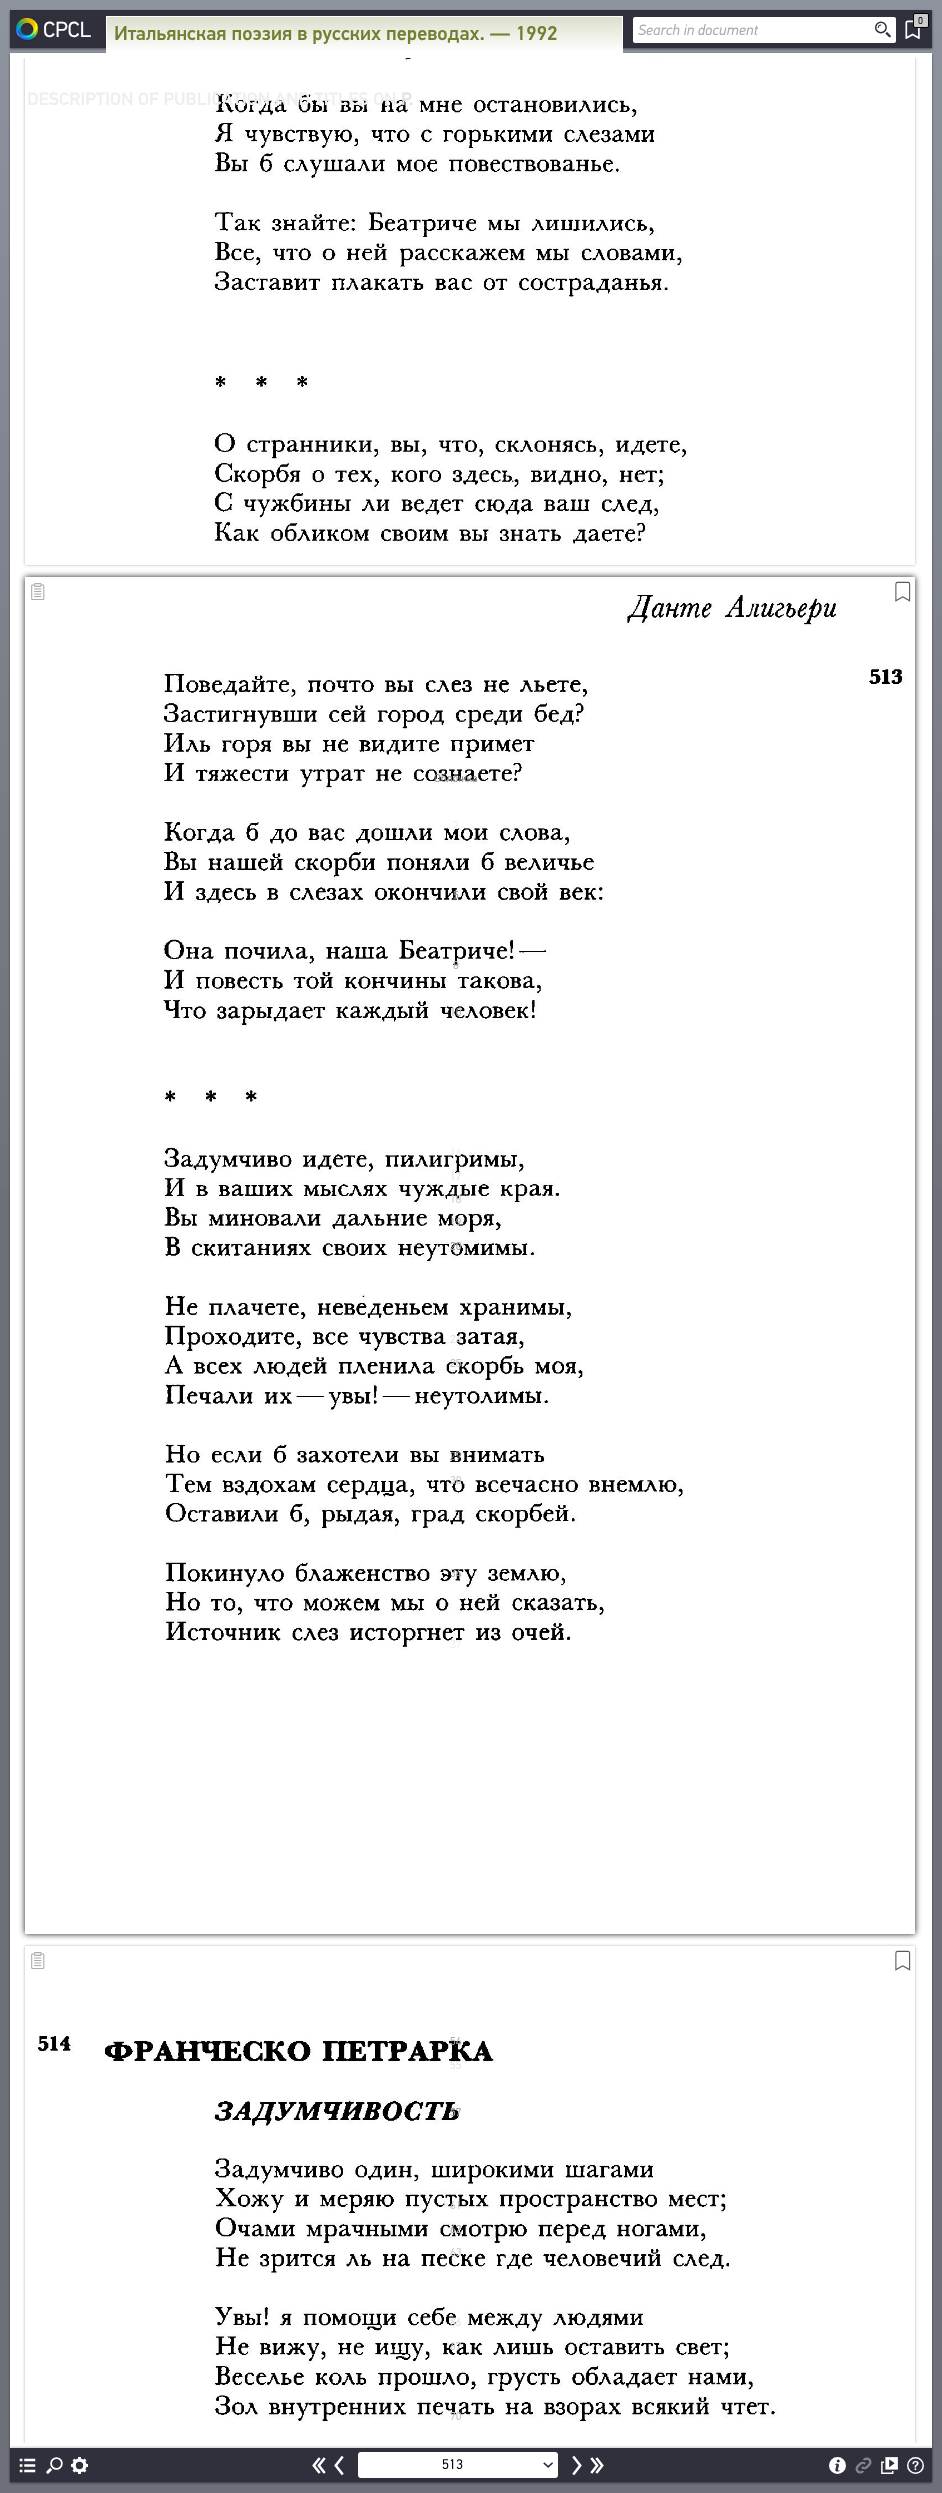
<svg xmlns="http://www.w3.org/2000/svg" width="942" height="2493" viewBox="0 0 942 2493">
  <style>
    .t1 { font: 22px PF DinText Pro; fill: #fff; }
    .t2 { font: 500 20px PF DinText Pro; fill: #708031; }
    .t3 { font: italic 15px PF DinText Pro; fill: #ababab; }
    .t4 { font: 10px PF DinText Pro; fill: #000; }
    .t5 { font: 500 18px PF DinText Pro; fill: #eee; }
    .t6 { font: 500 18px PF DinText Pro; letter-spacing: -1px; fill: #e1e1e1; }
    .t7 { font: 11.5px PF DinText Pro; fill: #969696; }
    .t8 { font: 11.5px PF DinText Pro; fill: #eee; }
    .t9 { font: 11.5px PF DinText Pro; fill: #b3b3b3; }
    .t10 { font: 11.5px PF DinText Pro; fill: #e1e1e1; }
    .t11 { font: 11.5px PF DinText Pro; fill: #ccc; }
    .t12 { font: 11.5px PF DinText Pro; fill: #bbb; }
    .t13 { font: 11.5px PF DinText Pro; fill: #9f9f9f; }
    .t14 { font: 11.5px PF DinText Pro; fill: #c3c3c3; }
    .t15 { font: 11.5px PF DinText Pro; fill: #757575; }
    .t16 { font: 11.5px PF DinText Pro; fill: #ababab; }
    .t17 { font: 14px PF DinText Pro; fill: #000; }
  </style>
  <defs>
    <linearGradient id="g1" gradientUnits="userSpaceOnUse" x1="471" y1="0" x2="471" y2="1247"><stop offset="0" stop-color="#8e939e"/><stop offset="1" stop-color="#6e7078"/></linearGradient>
    <clipPath id="clip1"><rect x="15" y="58" width="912" height="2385"/></clipPath>
    <linearGradient id="g2" gradientUnits="userSpaceOnUse" x1="365" y1="17" x2="365" y2="52"><stop offset="0" stop-color="#dbdfcc"/><stop offset="1" stop-color="#fff"/></linearGradient>
  </defs>
  <rect width="100%" height="100%" fill="#6d7078"/>
  <rect x="0" y="0" width="942" height="1189" fill="url(#g1)"/>
  <rect x="10" y="11" width="922" height="38" fill="#00000080" filter="blur(1px)"/>
  <rect x="10" y="54" width="922" height="2429" fill="#00000080" filter="blur(1px)"/>
  <rect x="10" y="53" width="922" height="2395" fill="#fff"/>
  <g clip-path="url(#clip1)">
    <rect x="25" y="-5" width="890" height="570" fill="#0000004d" filter="blur(1.5px)"/>
  </g>
  <rect x="10" y="10" width="922" height="38" fill="#30303d"/>
  <image x="16" y="18" width="22" height="24" href="images/1.png"/>
  <text x="43" y="37" class="t1">CPCL</text>
  <rect x="106" y="16" width="517" height="37" fill="#fff"/>
  <rect x="107" y="17" width="515" height="33" fill="url(#g2)"/>
  <text x="114" y="40" class="t2">Итальянская поэзия в русских переводах. — 1992</text>
  <rect x="633" y="17" width="263" height="26" rx="2" fill="#fff"/>
  <text x="638" y="35" class="t3">Search in document</text>
  <image x="875" y="21" width="16" height="17" href="images/2.png"/>
  <image x="905" y="20" width="15" height="19" href="images/3.png"/>
  <rect x="913.5" y="13.5" width="15" height="14" rx="1.5" fill="#ccc" stroke="#000"/>
  <text x="918" y="24" class="t4">0</text>
  <image x="25" y="58" width="890" height="507" href="images/4.png"/>
  <rect x="25" y="577" width="890" height="1357" fill="#000000e6" filter="blur(3px)"/>
  <image x="25" y="577" width="890" height="1357" href="images/5.png"/>
  <image x="31" y="583" width="14" height="17" href="images/6.png"/>
  <image x="895" y="581" width="16" height="21" href="images/7.png"/>
  <g clip-path="url(#clip1)">
    <rect x="25" y="1946" width="890" height="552" fill="#0000004d" filter="blur(1.5px)"/>
  </g>
  <image x="25" y="1946" width="890" height="497" href="images/8.png"/>
  <image x="31" y="1952" width="14" height="17" href="images/9.png"/>
  <image x="895" y="1950" width="16" height="21" href="images/7.png"/>
  <text x="27" y="105" class="t5">DESCRIPTION OF PUBLICATION AND TITLES ON</text>
  <text x="401" y="105" class="t6">P.</text>
  <rect x="10" y="2447" width="922" height="34" fill="#00000033" filter="blur(1px)"/>
  <rect x="10" y="2448" width="922" height="34" fill="#30303d"/>
  <image x="19" y="2458" width="17" height="15" href="images/10.png"/>
  <image x="46" y="2457" width="17" height="17" href="images/11.png"/>
  <image x="71" y="2457" width="17" height="17" href="images/12.png"/>
  <image x="312" y="2457" width="14" height="17" href="images/13.png"/>
  <image x="334" y="2455" width="10" height="21" href="images/14.png"/>
  <rect x="358" y="2452" width="200" height="26" rx="3" fill="#fff"/>
  <text x="434" y="782" class="t7">Обложка</text>
  <text x="453" y="829" class="t8">2</text>
  <text x="453" y="899" class="t7">5</text>
  <text x="453" y="969" class="t9">8</text>
  <text x="450" y="1016" class="t9">10</text>
  <text x="450" y="1156" class="t8">16</text>
  <text x="450" y="1180" class="t10">17</text>
  <text x="450" y="1203" class="t11">18</text>
  <text x="450" y="1226" class="t12">19</text>
  <text x="450" y="1250" class="t13">20</text>
  <text x="450" y="1343" class="t10">24</text>
  <text x="450" y="1367" class="t14">25</text>
  <text x="450" y="1460" class="t15">29</text>
  <text x="450" y="1484" class="t11">30</text>
  <text x="450" y="1577" class="t16">34</text>
  <text x="450" y="1648" class="t8">37</text>
  <text x="450" y="2045" class="t16">54</text>
  <text x="450" y="2069" class="t10">55</text>
  <text x="450" y="2116" class="t16">57</text>
  <text x="450" y="2209" class="t11">61</text>
  <text x="450" y="2233" class="t16">62</text>
  <text x="450" y="2256" class="t11">63</text>
  <text x="450" y="2326" class="t10">66</text>
  <text x="450" y="2350" class="t11">67</text>
  <text x="450" y="2420" class="t14">70</text>
  <text x="442" y="2469" class="t17">513</text>
  <image x="543" y="2462" width="10" height="6" href="images/15.png"/>
  <image x="572" y="2455" width="10" height="21" href="images/16.png"/>
  <image x="590" y="2457" width="14" height="17" href="images/17.png"/>
  <image x="829" y="2457" width="17" height="17" href="images/18.png"/>
  <image x="855" y="2457" width="17" height="17" href="images/19.png"/>
  <image x="881" y="2457" width="17" height="17" href="images/20.png"/>
  <image x="907" y="2457" width="17" height="17" href="images/21.png"/>
</svg>
